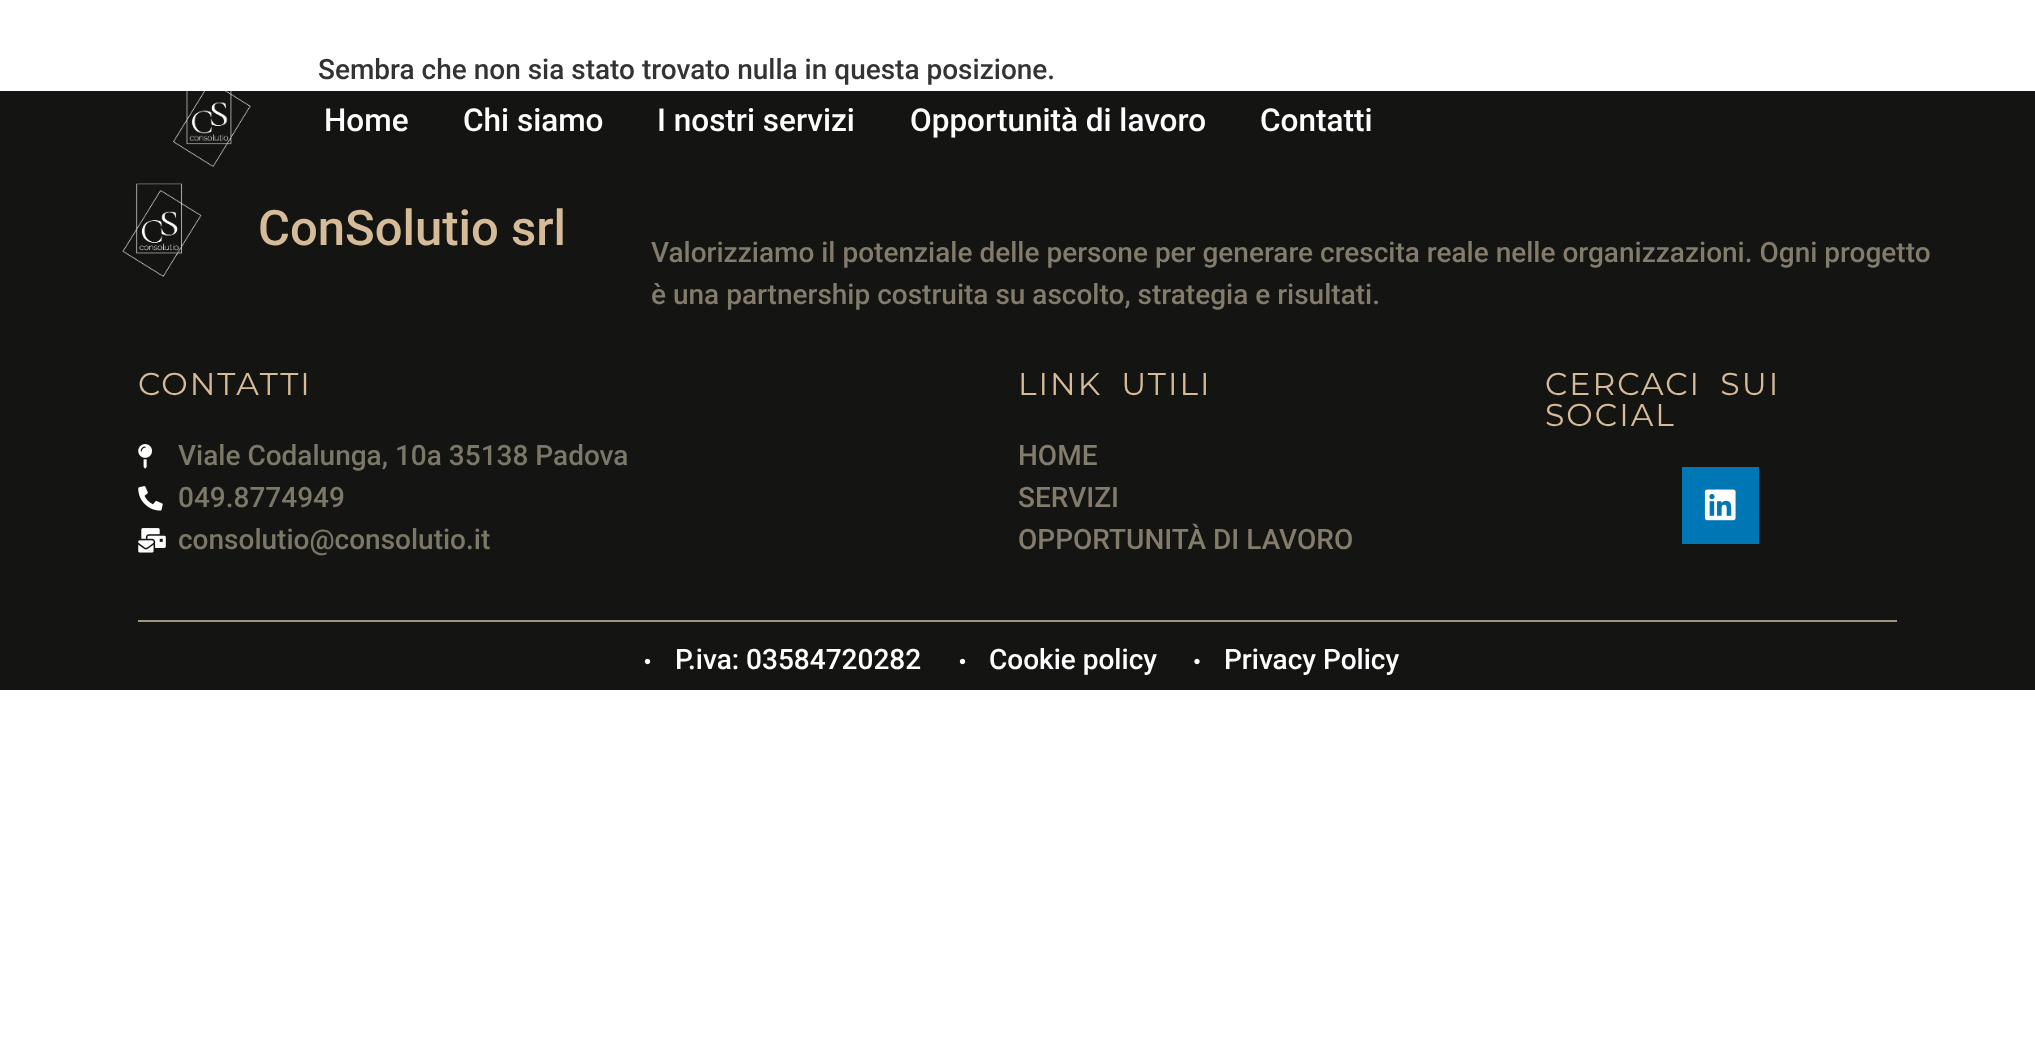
<svg xmlns="http://www.w3.org/2000/svg" width="2035" height="1054" viewBox="0 0 2035 1054">
  <style>
    .t1 { font: 500 28px Roboto; fill: #333; }
    .t2 { font: 500 31.5px Roboto; fill: #fff; }
    .t3 { font: 500 49px Roboto; fill: #d5bb97; }
    .t4 { font: 500 28px Roboto; fill: #837b6b; }
    .t5 { font: 31.5px Montserrat; letter-spacing: 2px; fill: #d5bb97; }
    .t6 { font: 500 28px Roboto; fill: #7c7868; }
    .t7 { font: 500 28px Roboto; fill: #fff; }
  </style>
  <rect width="100%" height="100%" fill="#fff"/>
  <text x="318" y="79" class="t1">Sembra che non sia stato trovato nulla in questa posizione.</text>
  <rect x="0" y="91" width="2035" height="599" fill="#141413"/>
  <image x="173" y="91" width="78" height="76" href="images/1.png"/>
  <text x="324" y="131" class="t2">Home</text>
  <text x="463" y="131" class="t2">Chi siamo</text>
  <text x="657" y="131" class="t2">I nostri servizi</text>
  <text x="910" y="131" class="t2">Opportunità di lavoro</text>
  <text x="1260" y="131" class="t2">Contatti</text>
  <image x="122" y="183" width="80" height="94" href="images/2.png"/>
  <text x="258" y="245" class="t3">ConSolutio srl</text>
  <text x="651" y="262" class="t4">Valorizziamo il potenziale delle persone per generare crescita reale nelle organizzazioni. Ogni progetto</text>
  <text x="651" y="304" class="t4">è una partnership costruita su ascolto, strategia e risultati.</text>
  <text x="138" y="395" class="t5">CONTATTI</text>
  <image x="138" y="444" width="14" height="25" href="images/3.png"/>
  <text x="178" y="465" class="t6">Viale Codalunga, 10a 35138 Padova</text>
  <image x="138" y="486" width="25" height="25" href="images/4.png"/>
  <text x="178" y="507" class="t6">049.8774949</text>
  <image x="138" y="528" width="28" height="25" href="images/5.png"/>
  <text x="178" y="549" class="t6">consolutio@consolutio.it</text>
  <text x="1018" y="395" word-spacing="9" class="t5">LINK UTILI</text>
  <text x="1018" y="465" class="t4">HOME</text>
  <text x="1018" y="507" class="t4">SERVIZI</text>
  <text x="1018" y="549" class="t4">OPPORTUNITÀ DI LAVORO</text>
  <text x="1545" y="395" word-spacing="9" class="t5">CERCACI SUI</text>
  <text x="1545" y="426" class="t5">SOCIAL</text>
  <rect x="1682" y="467" width="77" height="77" fill="#0077b5"/>
  <image x="1704" y="489" width="32" height="32" href="images/6.png"/>
  <rect x="138" y="620" width="1759" height="2" fill="#a3957c"/>
  <image x="644" y="658" width="7" height="7" href="images/7.png"/>
  <text x="675" y="669" class="t7">P.iva: 03584720282</text>
  <image x="959" y="658" width="7" height="7" href="images/7.png"/>
  <text x="989" y="669" class="t7">Cookie policy</text>
  <image x="1194" y="658" width="6" height="7" href="images/8.png"/>
  <text x="1224" y="669" class="t7">Privacy Policy</text>
</svg>
